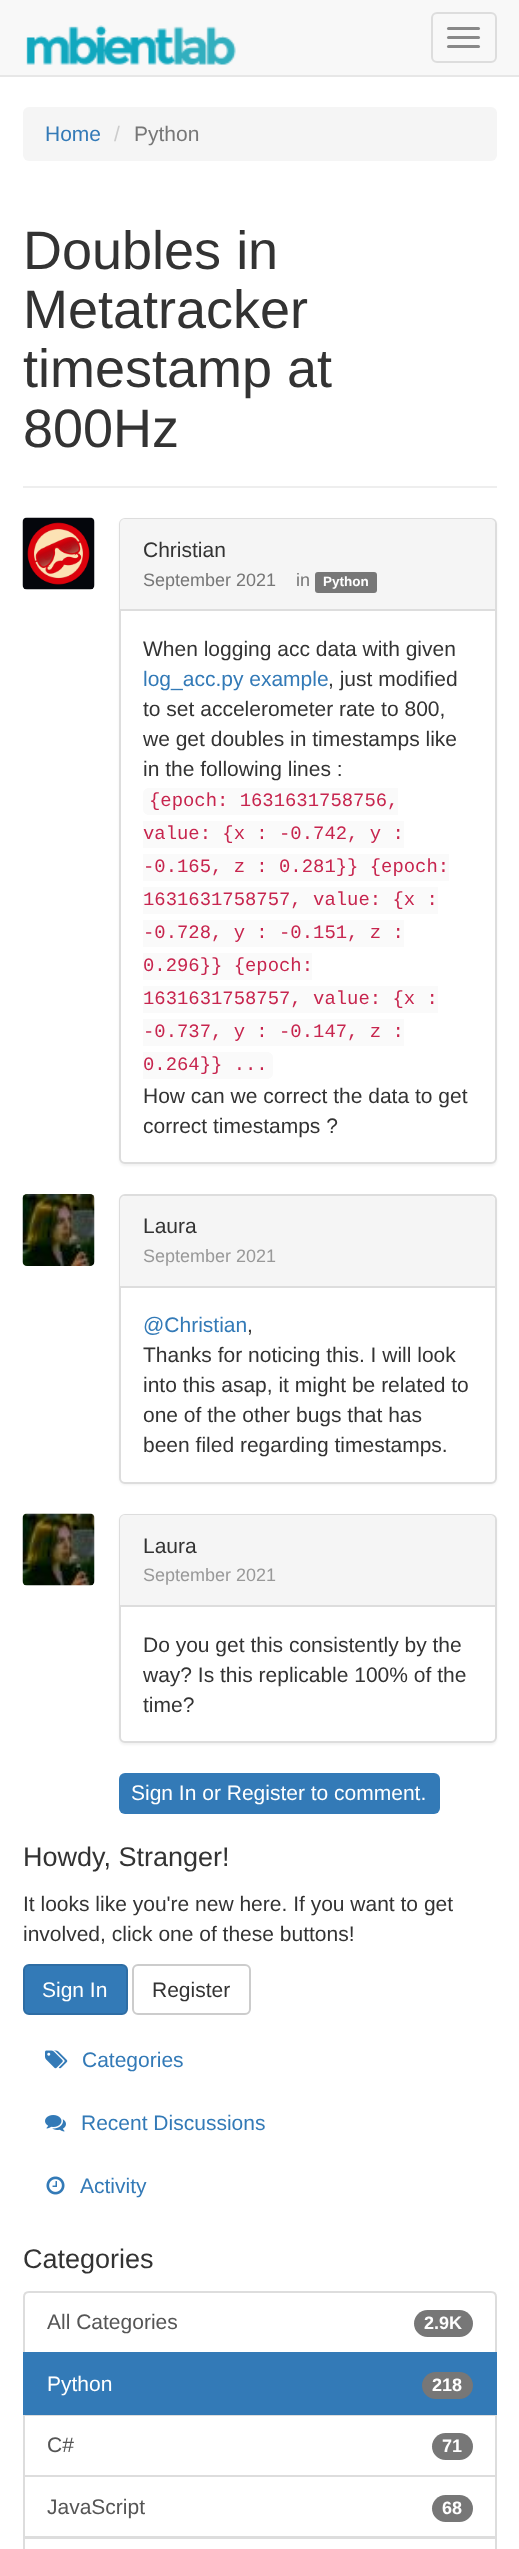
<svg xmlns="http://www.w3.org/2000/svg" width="519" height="2549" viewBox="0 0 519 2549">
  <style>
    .t1 { font: 21px Liberation Sans; fill: #337ab7; }
    .t2 { font: 21px Liberation Sans; fill: #ccc; }
    .t3 { font: 21px Liberation Sans; fill: #777; }
    .t4 { font: 54px Liberation Sans; fill: #333; }
    .t5 { font: 21px Liberation Sans; fill: #333; }
    .t6 { font: 18px Liberation Sans; fill: #777; }
    .t7 { font: bold 13.5px Liberation Sans; fill: #fff; }
    .t8 { font: 18.9px Liberation Mono; fill: #c7254e; }
    .t9 { font: 18px Liberation Sans; fill: #999; }
    .t10 { font: 21px Liberation Sans; fill: #fff; }
    .t11 { font: 27px Liberation Sans; fill: #333; }
    .t12 { font: 21px Liberation Sans; fill: #555; }
    .t13 { font: bold 18px Liberation Sans; fill: #fff; }
  </style>
  <rect width="100%" height="100%" fill="#fff"/>
  <rect x="0" y="0" width="519" height="75" fill="#f8f8f8"/>
  <rect x="0" y="75" width="519" height="2" fill="#e7e7e7"/>
  <image x="26" y="25" width="210" height="40" href="images/1.png"/>
  <rect x="432" y="13" width="64" height="49" rx="5" fill="none" stroke="#ddd" stroke-width="2"/>
  <rect x="447" y="27" width="33" height="3" rx="1.5" fill="#888"/>
  <rect x="447" y="36" width="33" height="3" rx="1.5" fill="#888"/>
  <rect x="447" y="45" width="33" height="3" rx="1.5" fill="#888"/>
  <rect x="23" y="107" width="474" height="54" rx="6" fill="#f5f5f5"/>
  <text x="45" y="141" class="t1">Home</text>
  <text x="114" y="141" class="t2">/</text>
  <text x="134" y="141" class="t3">Python</text>
  <rect x="23" y="486" width="474" height="2" fill="#eee"/>
  <text x="23" y="269" class="t4">Doubles in</text>
  <text x="23" y="328" class="t4">Metatracker</text>
  <text x="23" y="387" class="t4">timestamp at</text>
  <text x="23" y="447" class="t4">800Hz</text>
  <rect x="119" y="519" width="378" height="647" rx="6" fill="#0000000d" filter="blur(1px)"/>
  <rect x="120" y="519" width="376" height="644" rx="5" fill="#fff" stroke="#ddd" stroke-width="2"/>
  <path d="M125 519H490C493 519 495 521 495 524V611H120V524C120 521 122 519 125 519Z" fill="#f5f5f5"/>
  <rect x="120" y="609" width="375" height="2" fill="#ddd"/>
  <image x="22" y="517" width="73" height="73" href="images/2.png"/>
  <text x="143" y="557" class="t5">Christian</text>
  <text x="143" y="586" class="t6">September 2021</text>
  <text x="296" y="586" class="t6">in</text>
  <rect x="315" y="572" width="62" height="21" rx="3" fill="#777"/>
  <text x="323" y="586" class="t7">Python</text>
  <text x="143" y="656" class="t5">When logging acc data with given</text>
  <text x="143" y="686" class="t1">log_acc.py example</text>
  <text x="328" y="686" class="t5">, just modified</text>
  <text x="143" y="716" class="t5">to set accelerometer rate to 800,</text>
  <text x="143" y="746" class="t5">we get doubles in timestamps like</text>
  <text x="143" y="776" class="t5">in the following lines :</text>
  <path d="M149 788H398V815H149C145.5 815 143 812.5 143 809V794C143 790.5 145.5 788 149 788Z" fill="#fafafa"/>
  <text x="149" y="806" class="t8">{epoch: 1631631758756,</text>
  <rect x="143" y="821" width="261" height="27" fill="#fafafa"/>
  <text x="143" y="839" class="t8">value: {x : -0.742, y :</text>
  <rect x="143" y="854" width="306" height="27" fill="#fafafa"/>
  <text x="143" y="872" class="t8">-0.165, z : 0.281}} {epoch:</text>
  <rect x="143" y="887" width="295" height="27" fill="#fafafa"/>
  <text x="143" y="905" class="t8">1631631758757, value: {x :</text>
  <rect x="143" y="920" width="261" height="27" fill="#fafafa"/>
  <text x="143" y="938" class="t8">-0.728, y : -0.151, z :</text>
  <rect x="143" y="953" width="169" height="27" fill="#fafafa"/>
  <text x="143" y="971" class="t8">0.296}} {epoch:</text>
  <rect x="143" y="986" width="295" height="27" fill="#fafafa"/>
  <text x="143" y="1004" class="t8">1631631758757, value: {x :</text>
  <rect x="143" y="1019" width="261" height="27" fill="#fafafa"/>
  <text x="143" y="1037" class="t8">-0.737, y : -0.147, z :</text>
  <path d="M143 1052H267C270.5 1052 273 1054.5 273 1058V1073C273 1076.5 270.5 1079 267 1079H143Z" fill="#fafafa"/>
  <text x="143" y="1070" class="t8">0.264}} ...</text>
  <text x="143" y="1103" class="t5">How can we correct the data to get</text>
  <text x="143" y="1133" class="t5">correct timestamps ?</text>
  <rect x="119" y="1196" width="378" height="289" rx="6" fill="#0000000d" filter="blur(1px)"/>
  <rect x="120" y="1195" width="376" height="288" rx="5" fill="#fff" stroke="#ddd" stroke-width="2"/>
  <path d="M125 1196H490C493 1196 495 1198 495 1201V1287H120V1201C120 1198 122 1196 125 1196Z" fill="#f5f5f5"/>
  <rect x="120" y="1286" width="375" height="2" fill="#ddd"/>
  <image x="22" y="1194" width="73" height="72" href="images/3.png"/>
  <text x="143" y="1233" class="t5">Laura</text>
  <text x="143" y="1262" class="t9">September 2021</text>
  <text x="143" y="1332" class="t1">@Christian</text>
  <text x="247" y="1332" class="t5">,</text>
  <text x="143" y="1362" class="t5">Thanks for noticing this. I will look</text>
  <text x="143" y="1392" class="t5">into this asap, it might be related to</text>
  <text x="143" y="1422" class="t5">one of the other bugs that has</text>
  <text x="143" y="1452" class="t5">been filed regarding timestamps.</text>
  <rect x="119" y="1515" width="378" height="230" rx="6" fill="#0000000d" filter="blur(1px)"/>
  <rect x="120" y="1515" width="376" height="227" rx="5" fill="#fff" stroke="#ddd" stroke-width="2"/>
  <path d="M125 1515H490C493 1515 495 1517 495 1520V1607H120V1520C120 1517 122 1515 125 1515Z" fill="#f5f5f5"/>
  <rect x="120" y="1605" width="375" height="2" fill="#ddd"/>
  <image x="22" y="1513" width="73" height="73" href="images/4.png"/>
  <text x="143" y="1553" class="t5">Laura</text>
  <text x="143" y="1581" class="t9">September 2021</text>
  <text x="143" y="1652" class="t5">Do you get this consistently by the</text>
  <text x="143" y="1682" class="t5">way? Is this replicable 100% of the</text>
  <text x="143" y="1712" class="t5">time?</text>
  <rect x="119" y="1773" width="321" height="41" rx="6" fill="#337ab7"/>
  <text x="131" y="1800" class="t10">Sign In or Register to comment.</text>
  <text x="23" y="1866" class="t11">Howdy, Stranger!</text>
  <text x="23" y="1911" class="t5">It looks like you're new here. If you want to get</text>
  <text x="23" y="1941" class="t5">involved, click one of these buttons!</text>
  <rect x="24" y="1965" width="103" height="49" rx="5" fill="#337ab7" stroke="#2e6da4" stroke-width="2"/>
  <text x="42" y="1997" class="t10">Sign In</text>
  <rect x="133" y="1965" width="117" height="49" rx="5" fill="none" stroke="#ccc" stroke-width="2"/>
  <text x="152" y="1997" class="t5">Register</text>
  <image x="45" y="2050" width="23" height="19" href="images/5.png"/>
  <text x="82" y="2067" class="t1">Categories</text>
  <image x="45" y="2115" width="21" height="17" href="images/6.png"/>
  <text x="81" y="2130" class="t1">Recent Discussions</text>
  <image x="46" y="2176" width="19" height="19" href="images/7.png"/>
  <text x="80" y="2193" class="t1">Activity</text>
  <text x="23" y="2268" class="t11">Categories</text>
  <path d="M29 2292H491C494 2292 496 2294 496 2297V2353H24V2297C24 2294 26 2292 29 2292Z" fill="none" stroke="#ddd" stroke-width="2"/>
  <text x="47" y="2329" class="t12">All Categories</text>
  <rect x="414" y="2310" width="59" height="27" rx="13.5" fill="#777"/>
  <text x="424" y="2329" class="t13">2.9K</text>
  <rect x="24" y="2415" width="472" height="61" fill="none" stroke="#ddd" stroke-width="2"/>
  <rect x="23" y="2352" width="474" height="63" fill="#337ab7"/>
  <text x="47" y="2391" class="t10">Python</text>
  <rect x="422" y="2372" width="51" height="27" rx="13.5" fill="#777"/>
  <text x="432" y="2391" class="t13">218</text>
  <text x="47" y="2452" class="t12">C#</text>
  <rect x="432" y="2433" width="41" height="27" rx="13.5" fill="#777"/>
  <text x="442" y="2452" class="t13">71</text>
  <rect x="24" y="2476" width="472" height="61" fill="none" stroke="#ddd" stroke-width="2"/>
  <text x="47" y="2514" class="t12">JavaScript</text>
  <rect x="432" y="2495" width="41" height="27" rx="13.5" fill="#777"/>
  <text x="442" y="2514" class="t13">68</text>
  <rect x="24" y="2538" width="472" height="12" fill="none" stroke="#ddd" stroke-width="2"/>
</svg>
